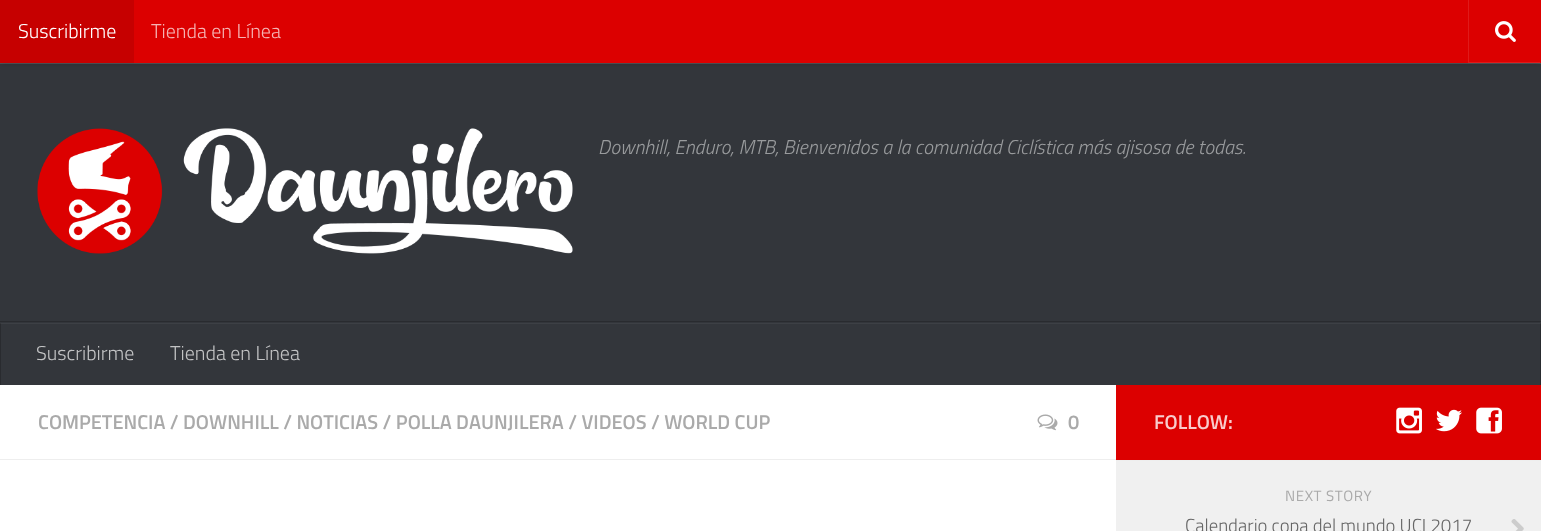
<svg xmlns="http://www.w3.org/2000/svg" width="1541" height="531" viewBox="0 0 1541 531">
  <style>
    .t1 { font: 300 20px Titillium; fill: #fff; }
    .t2 { font: 300 20px Titillium; fill: #f5b3b3; }
    .t3 { font: italic 300 20px Titillium; fill: #999b9d; }
    .t4 { font: 300 20px Titillium; fill: #c2c3c4; }
    .t5 { font: 600 20px Titillium; fill: #aaa; }
    .t6 { font: 600 20px Titillium; fill: #f8cccc; }
    .t7 { font: 15px Titillium; letter-spacing: 0.6px; fill: #aaa; }
    .t8 { font: 300 18.75px Titillium; fill: #666; }
  </style>
  <rect width="100%" height="100%" fill="#33363b"/>
  <rect x="0" y="323" width="1541" height="1" fill="#3d4045"/>
  <rect x="0" y="63" width="1541" height="1" fill="#525458"/>
  <rect x="0" y="0" width="1541" height="63" fill="#00000033" filter="blur(3px)"/>
  <rect x="134" y="0" width="1407" height="63" fill="#dc0000"/>
  <rect x="0" y="0" width="134" height="63" fill="#c60000"/>
  <text x="18" y="38" class="t1">Suscribirme</text>
  <text x="151" y="38" class="t2">Tienda en Línea</text>
  <path d="M1468 0V63H1540V62H1469V0Z" fill="#e01a1a"/>
  <image x="1495" y="21" width="21" height="21" href="images/1.png"/>
  <image x="37" y="128" width="536" height="126" href="images/2.png"/>
  <text x="598" y="154" class="t3">Downhill, Enduro, MTB, Bienvenidos a la comunidad Ciclística más ajisosa de todas.</text>
  <rect x="0" y="321" width="1541" height="1" fill="#292b2f"/>
  <rect x="1540" y="323" width="1" height="62" fill="#292b2f"/>
  <rect x="1540" y="323" width="1" height="1" fill="#343639"/>
  <rect x="0" y="323" width="1" height="62" fill="#292b2f"/>
  <rect x="0" y="323" width="1" height="1" fill="#343639"/>
  <text x="36" y="360" class="t4">Suscribirme</text>
  <text x="170" y="360" class="t4">Tienda en Línea</text>
  <rect x="0" y="385" width="1116" height="146" fill="#fff"/>
  <rect x="1116" y="461" width="425" height="70" fill="#f0f0f0"/>
  <rect x="0" y="459" width="1116" height="1" fill="#eee"/>
  <text x="38" y="429" class="t5">COMPETENCIA / DOWNHILL / NOTICIAS / POLLA DAUNJILERA / VIDEOS / WORLD CUP</text>
  <image x="1037" y="414" width="21" height="17" href="images/3.png"/>
  <text x="1068" y="429" class="t5">0</text>
  <rect x="1116" y="385" width="425" height="75" fill="#dc0000"/>
  <text x="1154" y="429" class="t6">FOLLOW:</text>
  <image x="1396" y="407" width="26" height="27" href="images/4.png"/>
  <image x="1436" y="409" width="26" height="23" href="images/5.png"/>
  <image x="1476" y="407" width="26" height="27" href="images/6.png"/>
  <rect x="1116" y="460" width="425" height="1" fill="#eee"/>
  <text x="1285" y="501" class="t7">NEXT STORY</text>
  <text x="1185" y="532" class="t8">Calendario copa del mundo UCI 2017</text>
  <image x="1511" y="519" width="13" height="12" href="images/7.png"/>
</svg>
